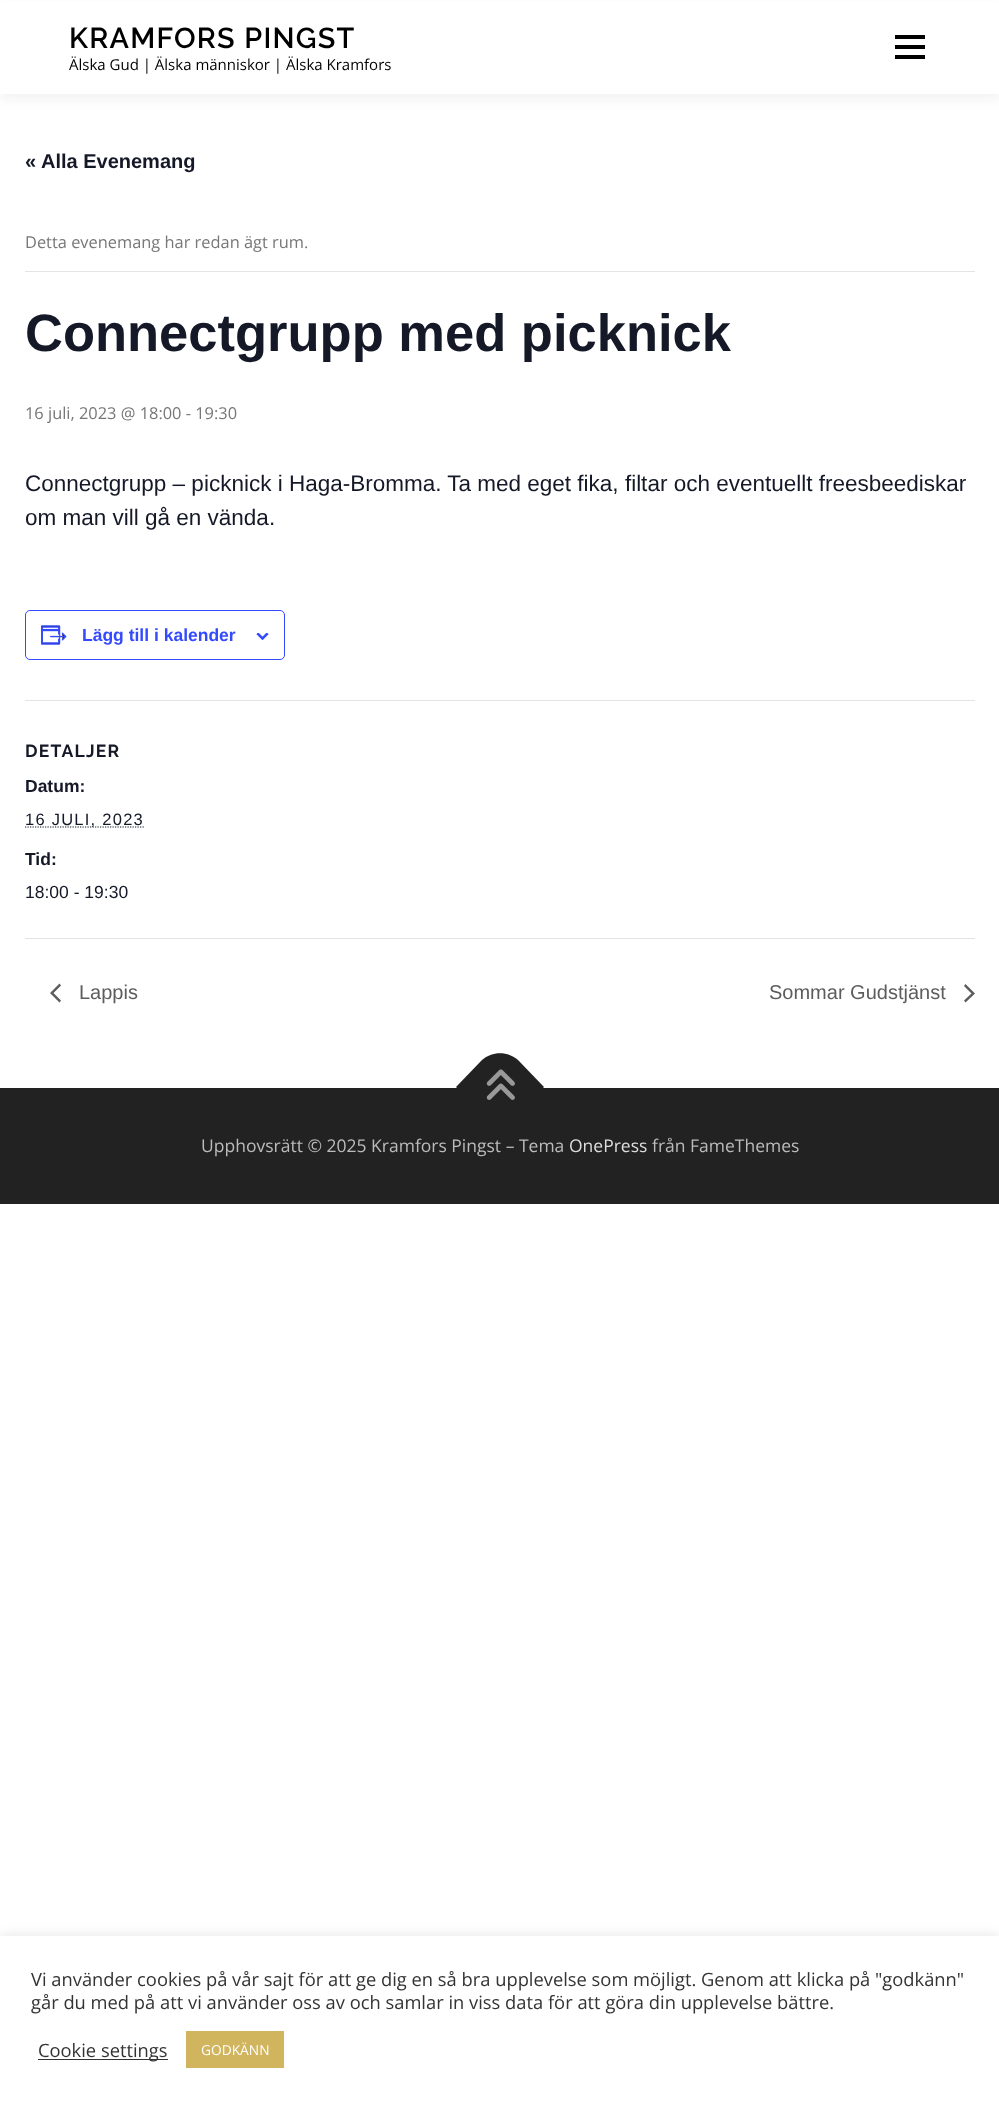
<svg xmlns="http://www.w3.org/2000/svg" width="999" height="2105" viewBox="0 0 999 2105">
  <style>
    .t1 { font: 600 28.75px Raleway; letter-spacing: 1.25px; fill: #000; }
    .t2 { font: 15px Open Sans; fill: #000; }
    .t3 { font: bold 20px Liberation Sans; fill: #141827; }
    .t4 { font: 16.4px Open Sans; fill: #777; }
    .t5 { font: bold 52.5px Liberation Sans; fill: #141827; }
    .t6 { font: 22.5px Liberation Sans; fill: #141827; }
    .t7 { font: bold 17.5px Liberation Sans; fill: #334aff; }
    .t8 { font: bold 17.5px Raleway; letter-spacing: 1.25px; fill: #141827; }
    .t9 { font: bold 17.5px Liberation Sans; fill: #141827; }
    .t10 { font: 16.5px Liberation Sans; letter-spacing: 1.25px; fill: #141827; }
    .t11 { font: 17.5px Liberation Sans; fill: #141827; }
    .t12 { font: 20px Liberation Sans; fill: #5d5d5d; }
    .t13 { font: 17.5px Open Sans; fill: #bbb; }
    .t14 { font: 17.5px Open Sans; fill: #ddd; }
    .t15 { font: 18.33px Open Sans; fill: #333; }
    .t16 { font: 13.75px Open Sans; fill: #fff; }
  </style>
  <rect width="100%" height="100%" fill="#fff"/>
  <rect x="0" y="6" width="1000" height="94" fill="#3232320f" filter="blur(6px)"/>
  <rect x="0" y="1" width="999" height="93" fill="#fff"/>
  <text x="69" y="48" class="t1">KRAMFORS PINGST</text>
  <text x="69" y="70" class="t2">Älska Gud | Älska människor | Älska Kramfors</text>
  <rect x="895" y="45" width="30" height="4" fill="#000"/>
  <rect x="895" y="35" width="30" height="4" fill="#000"/>
  <rect x="895" y="55" width="30" height="4" fill="#000"/>
  <text x="25" y="168" class="t3">« Alla Evenemang</text>
  <rect x="25" y="271" width="950" height="1" fill="#e4e4e4"/>
  <text x="25" y="248" class="t4">Detta evenemang har redan ägt rum.</text>
  <text x="25" y="351" class="t5">Connectgrupp med picknick</text>
  <text x="25" y="419" class="t4">16 juli, 2023 @ 18:00 - 19:30</text>
  <text x="25" y="491" class="t6">Connectgrupp – picknick i Haga-Bromma. Ta med eget fika, filtar och eventuellt freesbeediskar</text>
  <text x="25" y="525" class="t6">om man vill gå en vända.</text>
  <rect x="25.5" y="610.5" width="259" height="49" rx="4.5" fill="none" stroke="#334aff"/>
  <image x="41" y="625" width="26" height="20" href="images/1.png"/>
  <text x="82" y="641" class="t7">Lägg till i kalender</text>
  <image x="256" y="633" width="13" height="7" href="images/2.png"/>
  <rect x="25" y="700" width="950" height="1" fill="#e4e4e4"/>
  <text x="25" y="757" class="t8">DETALJER</text>
  <text x="25" y="792" class="t9">Datum:</text>
  <path d="M25 827H144.5" fill="none" stroke="#141827" stroke-width="1.2" stroke-dasharray="1.25 1.25"/>
  <text x="25" y="825" class="t10">16 JULI, 2023</text>
  <text x="25" y="865" class="t9">Tid:</text>
  <text x="25" y="898" class="t11">18:00 - 19:30</text>
  <rect x="25" y="938" width="950" height="1" fill="#e4e4e4"/>
  <path d="M61 1000.5L59.5 1002.5L50 993L59.5 983.5L61 985.5L53.5 993Z" fill="#5d5d5d"/>
  <text x="79" y="999" class="t12">Lappis</text>
  <text x="769" y="999" class="t12">Sommar Gudstjänst</text>
  <path d="M964 986L965.5 984L975 993.5L965.5 1002.5L964 1000.5L971.5 993.5Z" fill="#5d5d5d"/>
  <rect x="0" y="1088" width="999" height="116" fill="#222"/>
  <path d="M456 1087L482 1060C492 1051 508 1051 518 1060L544 1087L500 1131Z" fill="#222"/>
  <image x="486" y="1069" width="29" height="31" href="images/3.png"/>
  <text x="201" y="1152" class="t13">Upphovsrätt © 2025 Kramfors Pingst – Tema</text>
  <text x="569" y="1152" class="t14">OnePress</text>
  <text x="652" y="1152" class="t13">från FameThemes</text>
  <rect x="0" y="1935" width="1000" height="169" fill="#acabab4d" filter="blur(6px)"/>
  <rect x="0" y="1936" width="999" height="169" fill="#fff"/>
  <text x="31" y="1986" class="t15">Vi använder cookies på vår sajt för att ge dig en så bra upplevelse som möjligt. Genom att klicka på "godkänn"</text>
  <text x="31" y="2009" class="t15">går du med på att vi använder oss av och samlar in viss data för att göra din upplevelse bättre.</text>
  <rect x="38" y="2059" width="130" height="1" fill="#333"/>
  <text x="38" y="2057" class="t15">Cookie settings</text>
  <rect x="186" y="2031" width="98" height="37" fill="#d1b45e"/>
  <text x="201" y="2055" class="t16">GODKÄNN</text>
</svg>
